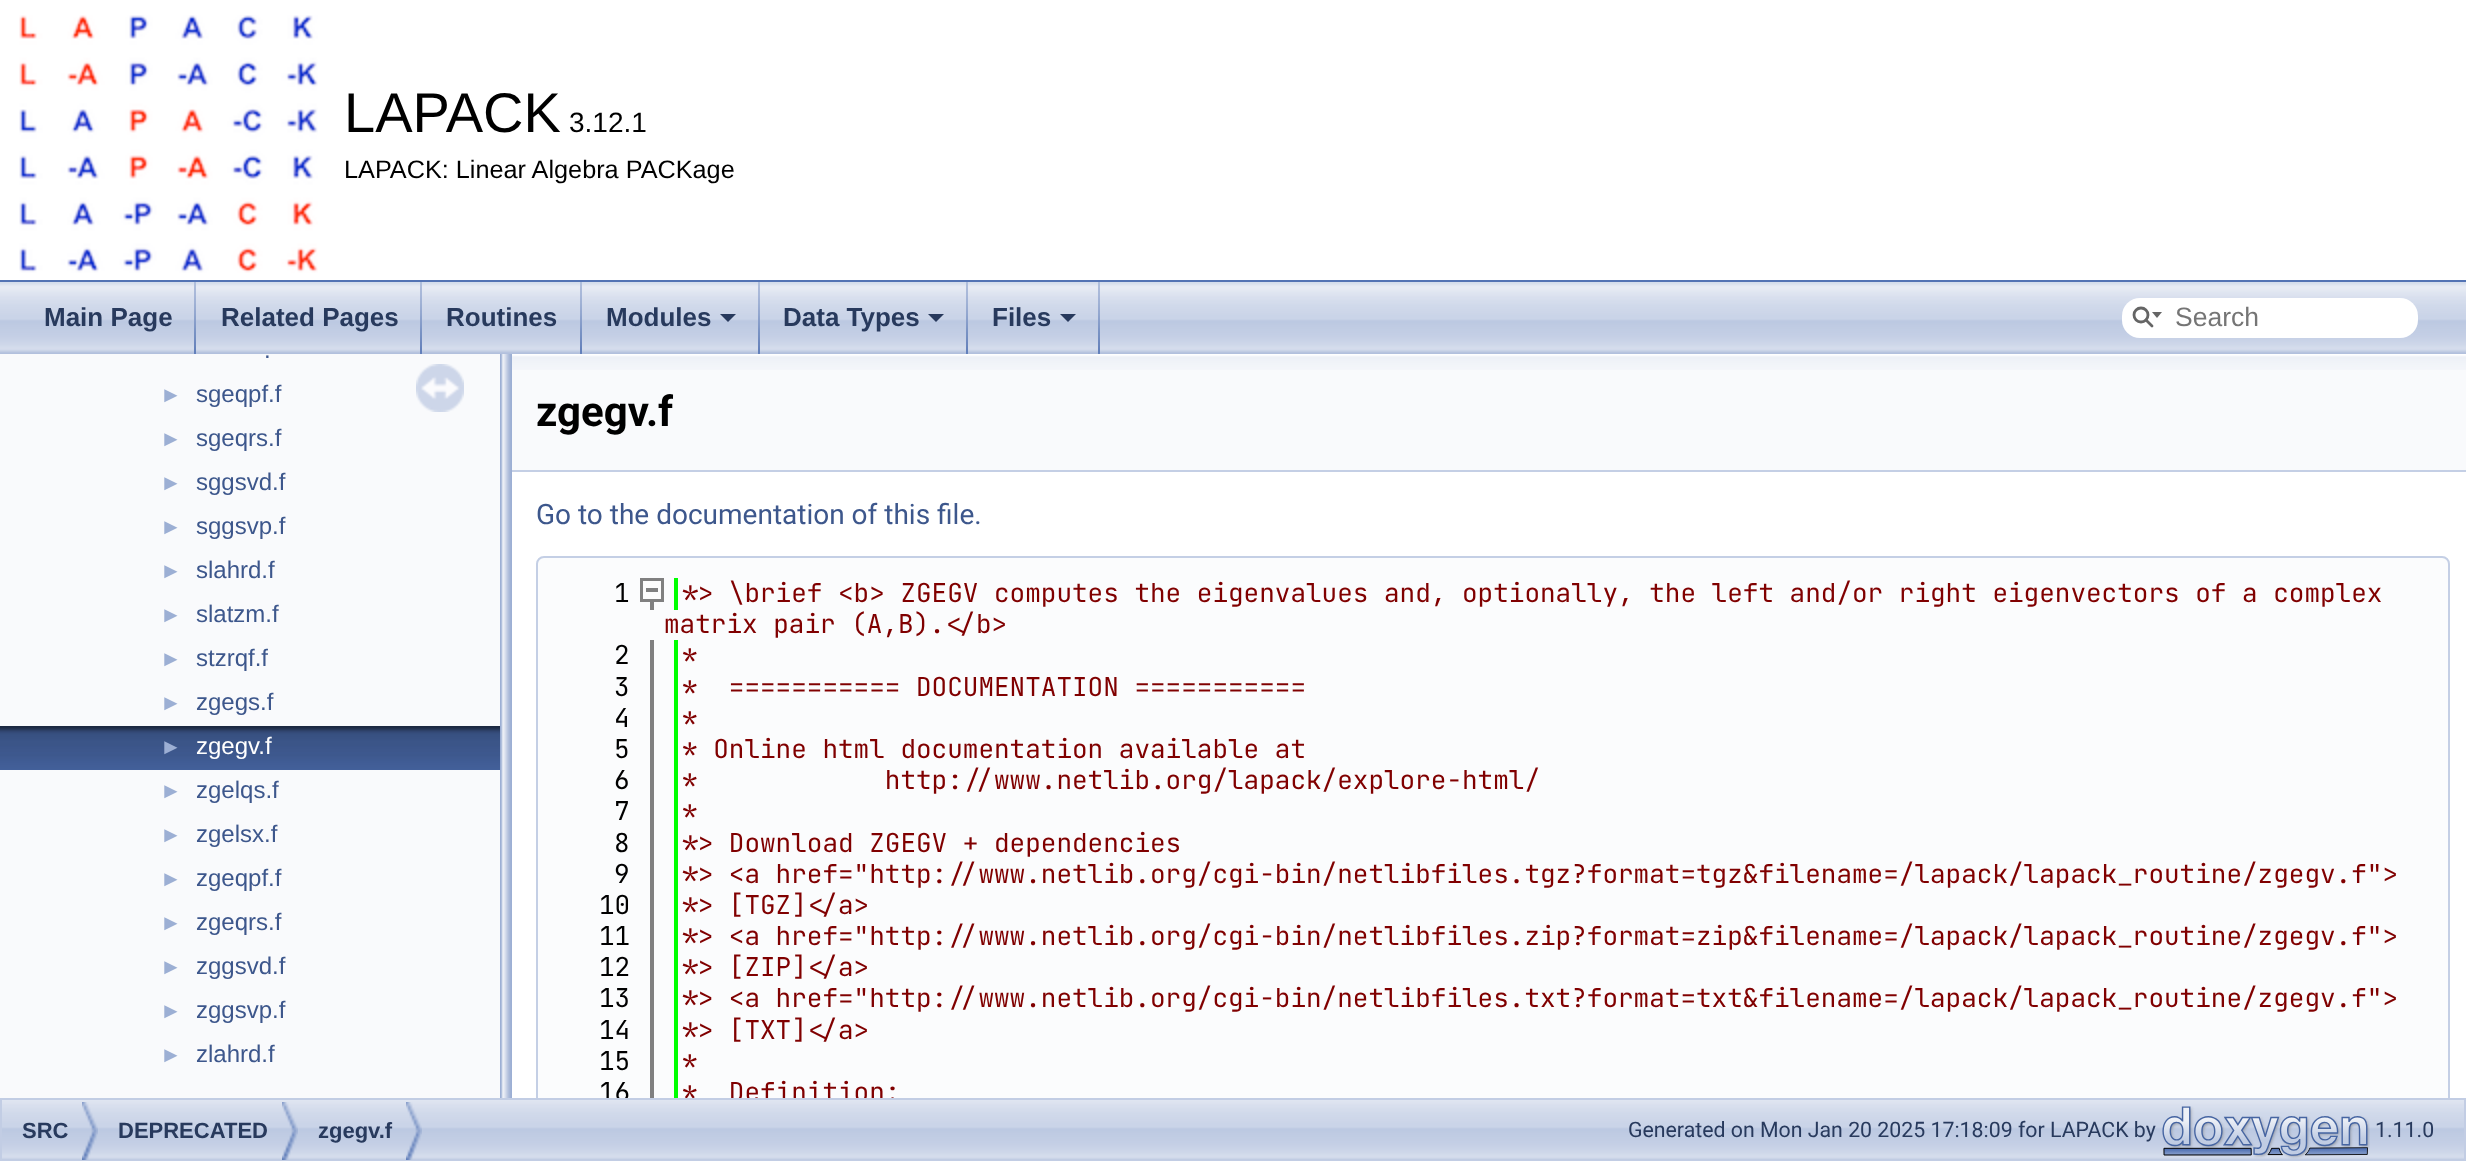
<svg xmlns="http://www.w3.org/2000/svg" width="2466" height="1161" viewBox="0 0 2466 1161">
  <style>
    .t1 { font: 56px Liberation Sans; fill: #000; }
    .t2 { font: 28px Liberation Sans; fill: #000; }
    .t3 { font: 25.25px Liberation Sans; fill: #000; }
    .t4 { font: bold 26px Liberation Sans; fill: #283a5d; }
    .t5 { font: 26.5px Liberation Sans; fill: #757575; }
    .t6 { font: 24px Liberation Sans; fill: #3d578c; }
    .t7 { font: 22px Liberation Sans; fill: #9cafd4; }
    .t8 { font: 24px Liberation Sans; fill: #fff; }
    .t9 { font: bold 42px Roboto; fill: #000; }
    .t10 { font: 28px Roboto; fill: #3d578c; }
    .t11 { font: 26px JetBrains Mono; fill: #000; }
    .t12 { font: 26px JetBrains Mono; fill: #800000; }
    .t13 { font: bold 22px Liberation Sans; fill: #283a5d; }
    .t14 { font: 21.3px Roboto; fill: #283a5d; }
  </style>
  <defs>
    <clipPath id="clip1"><rect x="512" y="354" width="1954" height="744"/></clipPath>
  </defs>
  <rect width="100%" height="100%" fill="#fff"/>
  <rect x="0" y="280" width="2466" height="2" fill="#5373b4"/>
  <image x="19" y="15" width="299" height="258" href="images/1.png"/>
  <text x="344" y="132" class="t1">LAPACK</text>
  <text x="569" y="132" class="t2">3.12.1</text>
  <text x="344" y="178" class="t3">LAPACK: Linear Algebra PACKage</text>
  <image x="0" y="282" width="2466" height="72" href="images/2.png"/>
  <image x="194" y="282" width="2" height="72" href="images/3.png"/>
  <text x="44" y="326" class="t4">Main Page</text>
  <image x="420" y="282" width="2" height="72" href="images/3.png"/>
  <text x="221" y="326" class="t4">Related Pages</text>
  <image x="580" y="282" width="2" height="72" href="images/3.png"/>
  <text x="446" y="326" class="t4">Routines</text>
  <image x="758" y="282" width="2" height="72" href="images/3.png"/>
  <text x="606" y="326" class="t4">Modules</text>
  <path d="M720 314H736L728 322Z" fill="#283a5d"/>
  <image x="966" y="282" width="2" height="72" href="images/3.png"/>
  <text x="783" y="326" class="t4">Data Types</text>
  <path d="M928 314H944L936 322Z" fill="#283a5d"/>
  <image x="1098" y="282" width="2" height="72" href="images/3.png"/>
  <text x="992" y="326" class="t4">Files</text>
  <path d="M1060 314H1076L1068 322Z" fill="#283a5d"/>
  <rect x="2122" y="298" width="296" height="40" rx="18" fill="#fff"/>
  <circle cx="2141" cy="315" r="7" fill="none" stroke="#656565" stroke-width="2.8"/>
  <path d="M2152 312L2157 318L2162 312Z" fill="#656565"/>
  <path d="M2146 320L2152 326" fill="none" stroke="#656565" stroke-width="2.8" stroke-linecap="round"/>
  <text x="2175" y="326" class="t5">Search</text>
  <rect x="0" y="354" width="500" height="744" fill="#f9fafc"/>
  <text x="264" y="358" class="t6">.</text>
  <text x="160" y="402" class="t7">►</text>
  <text x="196" y="402" class="t6">sgeqpf.f</text>
  <text x="160" y="446" class="t7">►</text>
  <text x="196" y="446" class="t6">sgeqrs.f</text>
  <text x="160" y="490" class="t7">►</text>
  <text x="196" y="490" class="t6">sggsvd.f</text>
  <text x="160" y="534" class="t7">►</text>
  <text x="196" y="534" class="t6">sggsvp.f</text>
  <text x="160" y="578" class="t7">►</text>
  <text x="196" y="578" class="t6">slahrd.f</text>
  <text x="160" y="622" class="t7">►</text>
  <text x="196" y="622" class="t6">slatzm.f</text>
  <text x="160" y="666" class="t7">►</text>
  <text x="196" y="666" class="t6">stzrqf.f</text>
  <text x="160" y="710" class="t7">►</text>
  <text x="196" y="710" class="t6">zgegs.f</text>
  <image x="0" y="726" width="500" height="44" href="images/4.png"/>
  <text x="160" y="754" class="t7">►</text>
  <text x="196" y="754" class="t8">zgegv.f</text>
  <text x="160" y="798" class="t7">►</text>
  <text x="196" y="798" class="t6">zgelqs.f</text>
  <text x="160" y="842" class="t7">►</text>
  <text x="196" y="842" class="t6">zgelsx.f</text>
  <text x="160" y="886" class="t7">►</text>
  <text x="196" y="886" class="t6">zgeqpf.f</text>
  <text x="160" y="930" class="t7">►</text>
  <text x="196" y="930" class="t6">zgeqrs.f</text>
  <text x="160" y="974" class="t7">►</text>
  <text x="196" y="974" class="t6">zggsvd.f</text>
  <text x="160" y="1018" class="t7">►</text>
  <text x="196" y="1018" class="t6">zggsvp.f</text>
  <text x="160" y="1062" class="t7">►</text>
  <text x="196" y="1062" class="t6">zlahrd.f</text>
  <image x="416" y="364" width="48" height="48" href="images/5.png"/>
  <image x="500" y="354" width="12" height="744" href="images/6.png"/>
  <rect x="512" y="370" width="1954" height="100" fill="#f9fafc"/>
  <image x="512" y="354" width="1954" height="16" href="images/7.png"/>
  <rect x="512" y="470" width="1954" height="2" fill="#c4cfe5"/>
  <text x="536" y="426" class="t9">zgegv.f</text>
  <text x="536" y="524" class="t10">Go to the documentation of this file.</text>
  <path d="M544 556H2442C2446.5 556 2450 559.5 2450 564V1098H536V564C536 559.5 539.5 556 544 556Z" fill="#fbfcfd"/>
  <image x="2" y="1100" width="2462" height="60" href="images/8.png"/>
  <rect x="1" y="1099" width="2464" height="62" fill="none" stroke="#c2cde4" stroke-width="2"/>
  <image x="2162" y="1106" width="208" height="53" href="images/10.png"/>
  <g clip-path="url(#clip1)">
    <rect x="537" y="557" width="1912" height="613" rx="7" fill="none" stroke="#c4cfe5" stroke-width="2"/>
  </g>
  <rect x="650" y="602" width="4" height="8" fill="#808080"/>
  <rect x="674" y="578" width="4" height="32" fill="#0f0"/>
  <text x="614" y="602" class="t11">1</text>
  <rect x="640" y="578" width="24" height="24" fill="#808080"/>
  <rect x="643" y="581" width="18" height="18" fill="#fcfcfc"/>
  <rect x="646" y="588" width="12" height="4" fill="#808080"/>
  <text x="682" y="602" class="t12">*&gt; \brief &lt;b&gt; ZGEGV computes the eigenvalues and, optionally, the left and/or right eigenvectors of a complex</text>
  <text x="664" y="633" class="t12">matrix pair (A,B).&lt;/b&gt;</text>
  <rect x="650" y="640" width="4" height="458" fill="#808080"/>
  <rect x="674" y="640" width="4" height="458" fill="#0f0"/>
  <text x="614" y="664" class="t11">2</text>
  <text x="682" y="664" class="t12">*</text>
  <text x="614" y="696" class="t11">3</text>
  <text x="682" y="696" class="t12" xml:space="preserve">*  =========== DOCUMENTATION ===========</text>
  <text x="614" y="727" class="t11">4</text>
  <text x="682" y="727" class="t12">*</text>
  <text x="614" y="758" class="t11">5</text>
  <text x="682" y="758" class="t12">* Online html documentation available at</text>
  <text x="614" y="789" class="t11">6</text>
  <text x="682" y="789" class="t12" xml:space="preserve">*            http://www.netlib.org/lapack/explore-html/</text>
  <text x="614" y="820" class="t11">7</text>
  <text x="682" y="820" class="t12">*</text>
  <text x="614" y="852" class="t11">8</text>
  <text x="682" y="852" class="t12">*&gt; Download ZGEGV + dependencies</text>
  <text x="614" y="883" class="t11">9</text>
  <text x="682" y="883" class="t12">*&gt; &lt;a href="http://www.netlib.org/cgi-bin/netlibfiles.tgz?format=tgz&amp;filename=/lapack/lapack_routine/zgegv.f"&gt;</text>
  <text x="599" y="914" class="t11">10</text>
  <text x="682" y="914" class="t12">*&gt; [TGZ]&lt;/a&gt;</text>
  <text x="599" y="945" class="t11">11</text>
  <text x="682" y="945" class="t12">*&gt; &lt;a href="http://www.netlib.org/cgi-bin/netlibfiles.zip?format=zip&amp;filename=/lapack/lapack_routine/zgegv.f"&gt;</text>
  <text x="599" y="976" class="t11">12</text>
  <text x="682" y="976" class="t12">*&gt; [ZIP]&lt;/a&gt;</text>
  <text x="599" y="1007" class="t11">13</text>
  <text x="682" y="1007" class="t12">*&gt; &lt;a href="http://www.netlib.org/cgi-bin/netlibfiles.txt?format=txt&amp;filename=/lapack/lapack_routine/zgegv.f"&gt;</text>
  <text x="599" y="1039" class="t11">14</text>
  <text x="682" y="1039" class="t12">*&gt; [TXT]&lt;/a&gt;</text>
  <text x="599" y="1070" class="t11">15</text>
  <text x="682" y="1070" class="t12">*</text>
  <g clip-path="url(#clip1)">
    <text x="599" y="1101" class="t11">16</text>
    <text x="682" y="1101" class="t12" xml:space="preserve">*  Definition:</text>
  </g>
  <image x="82" y="1102" width="16" height="58" href="images/9.png"/>
  <text x="22" y="1138" class="t13">SRC</text>
  <image x="282" y="1102" width="16" height="58" href="images/9.png"/>
  <text x="118" y="1138" class="t13">DEPRECATED</text>
  <image x="406" y="1102" width="16" height="58" href="images/9.png"/>
  <text x="318" y="1138" class="t13">zgegv.f</text>
  <text x="1628" y="1137" class="t14">Generated on Mon Jan 20 2025 17:18:09 for LAPACK by</text>
  <text x="2375" y="1137" class="t14">1.11.0</text>
</svg>
